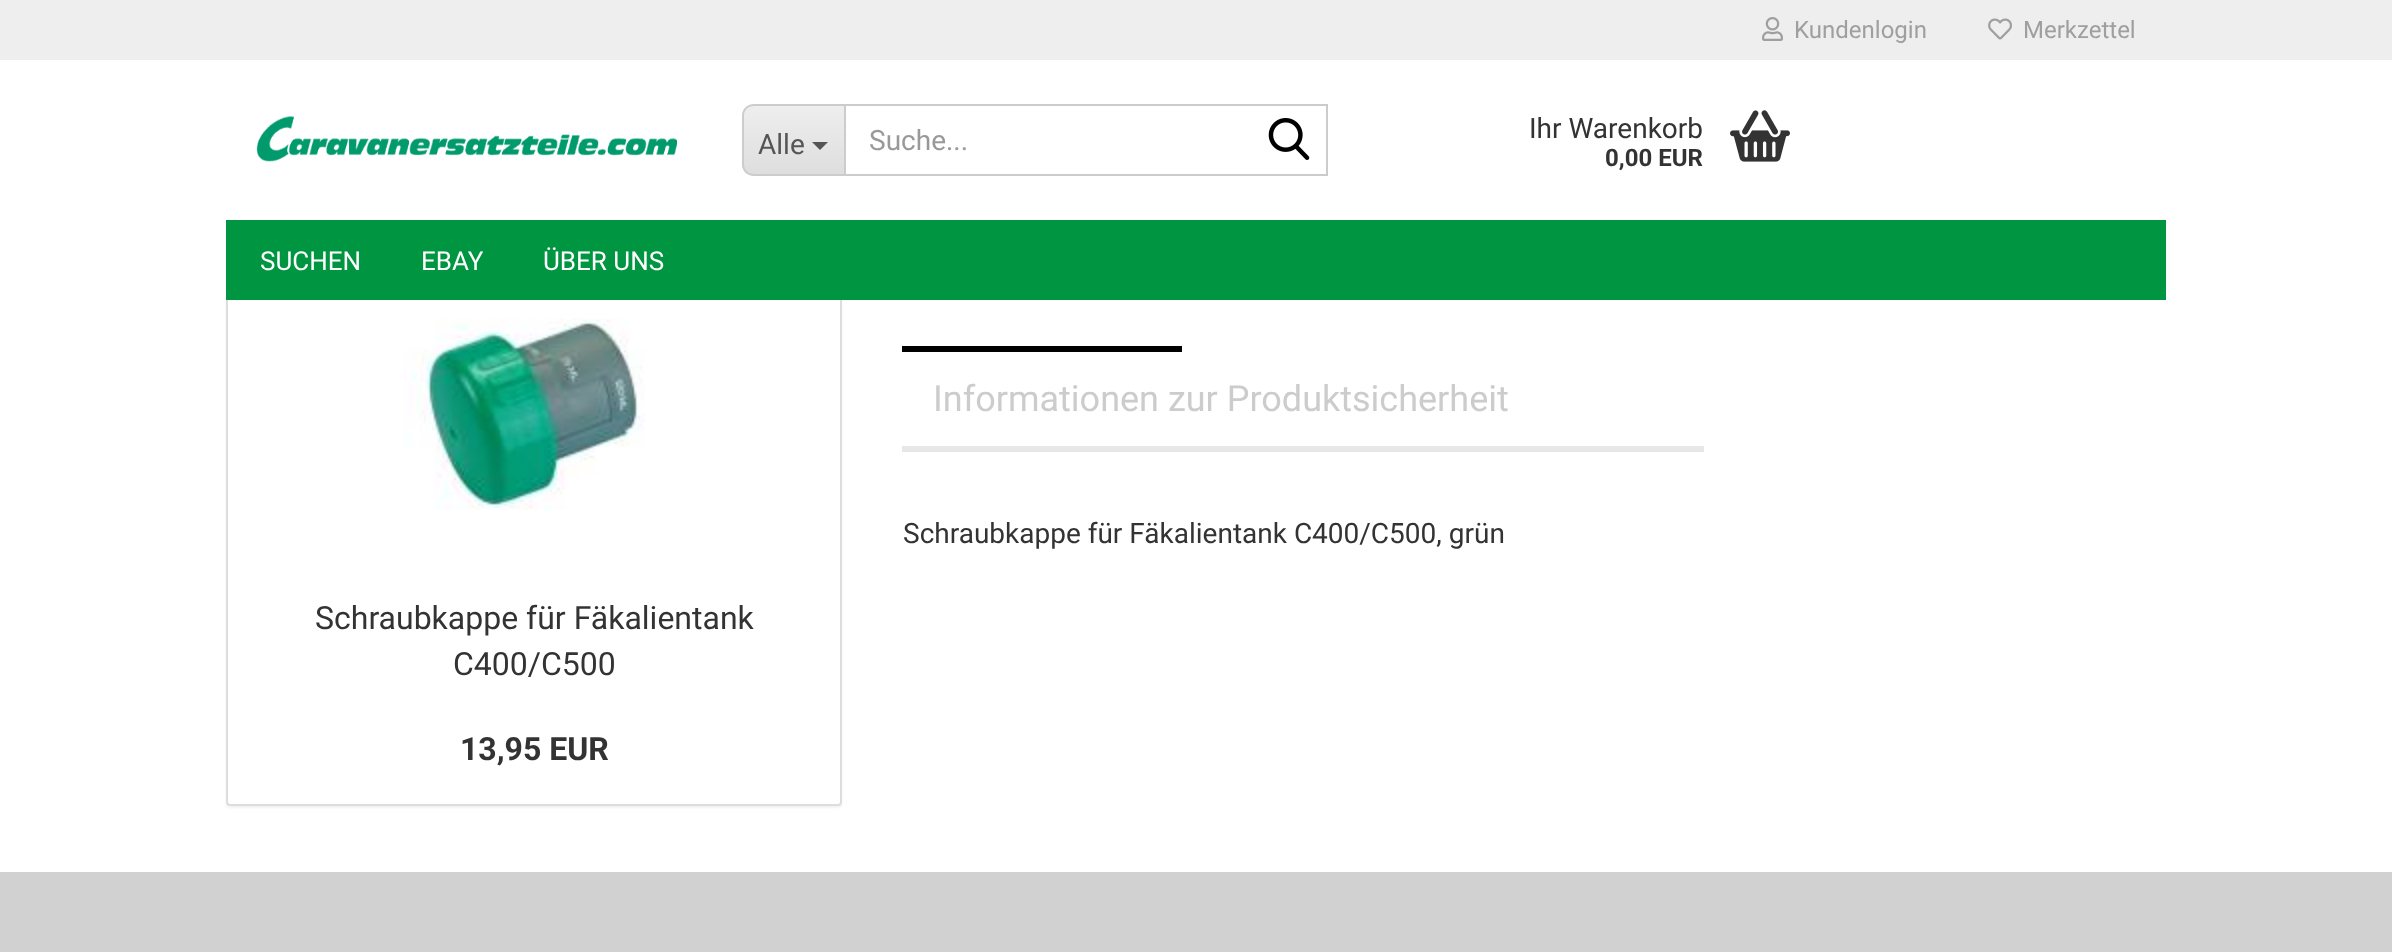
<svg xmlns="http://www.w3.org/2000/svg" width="2392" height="952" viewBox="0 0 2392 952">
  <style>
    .t1 { font: 24px Roboto; fill: #9f9f9f; }
    .t2 { font: 28px Roboto; fill: #555; }
    .t3 { font: 28px Roboto; fill: #999; }
    .t4 { font: 28px Roboto; fill: #333; }
    .t5 { font: bold 24px Roboto; fill: #333; }
    .t6 { font: 26px Roboto; fill: #fff; }
    .t7 { font: 36px Roboto; fill: #ccc; }
    .t8 { font: 32px Roboto; fill: #333; }
    .t9 { font: bold 32px Roboto; fill: #333; }
  </style>
  <defs>
    <clipPath id="clip1"><path d="M754 104H844V176H754C747.5 176 742 170.5 742 164V116C742 109.5 747.5 104 754 104Z"/></clipPath>
    <linearGradient id="g1" gradientUnits="userSpaceOnUse" x1="794" y1="106" x2="794" y2="174"><stop offset="0" stop-color="#eee"/><stop offset="1" stop-color="#dedede"/></linearGradient>
  </defs>
  <rect width="100%" height="100%" fill="#fff"/>
  <rect x="226" y="172" width="616" height="636" rx="4" fill="#0000000d" filter="blur(1px)"/>
  <rect x="227" y="171" width="614" height="634" rx="3" fill="#fff" stroke="#ddd" stroke-width="2"/>
  <rect x="225" y="170" width="618" height="130" fill="#fff"/>
  <rect x="0" y="0" width="2392" height="60" fill="#eee"/>
  <image x="1762" y="17" width="21" height="24" href="images/1.png"/>
  <text x="1794" y="38" class="t1">Kundenlogin</text>
  <image x="1988" y="18" width="24" height="22" href="images/2.png"/>
  <text x="2023" y="38" class="t1">Merkzettel</text>
  <image x="256" y="116" width="421" height="46" href="images/3.png"/>
  <g clip-path="url(#clip1)">
    <rect x="742" y="106" width="102" height="68" fill="url(#g1)"/>
  </g>
  <path d="M754 104H844V176H754C747 176 742 171 742 164V116C742 109 747 104 754 104ZM754 106H844V174H754C748 174 744 170 744 164V116C744 110 748 106 754 106Z" fill="#ccc" fill-rule="evenodd"/>
  <text x="758" y="154" class="t2">Alle</text>
  <path d="M812 142H828L820 150Z" fill="#555"/>
  <rect x="845" y="105" width="482" height="70" fill="none" stroke="#ccc" stroke-width="2"/>
  <text x="869" y="150" class="t3">Suche...</text>
  <image x="1268" y="118" width="42" height="42" href="images/4.png"/>
  <text x="1529" y="138" class="t4">Ihr Warenkorb</text>
  <text x="1605" y="166" class="t5">0,00 EUR</text>
  <image x="1730" y="110" width="60" height="52" href="images/5.png"/>
  <rect x="226" y="220" width="1940" height="80" fill="#009541"/>
  <text x="260" y="270" class="t6">SUCHEN</text>
  <text x="421" y="270" class="t6">EBAY</text>
  <text x="543" y="270" class="t6">ÜBER UNS</text>
  <rect x="902" y="446" width="802" height="6" fill="#e7e7e7"/>
  <rect x="902" y="346" width="280" height="6" fill="#000"/>
  <text x="933" y="411" class="t7">Informationen zur Produktsicherheit</text>
  <text x="903" y="543" class="t4">Schraubkappe für Fäkalientank C400/C500, grün</text>
  <image x="404" y="318" width="241" height="192" href="images/6.png"/>
  <text x="315" y="629" class="t8">Schraubkappe für Fäkalientank</text>
  <text x="453" y="675" class="t8">C400/C500</text>
  <text x="460" y="760" class="t9">13,95 EUR</text>
  <rect x="0" y="872" width="2392" height="80" fill="#d1d1d1"/>
</svg>
